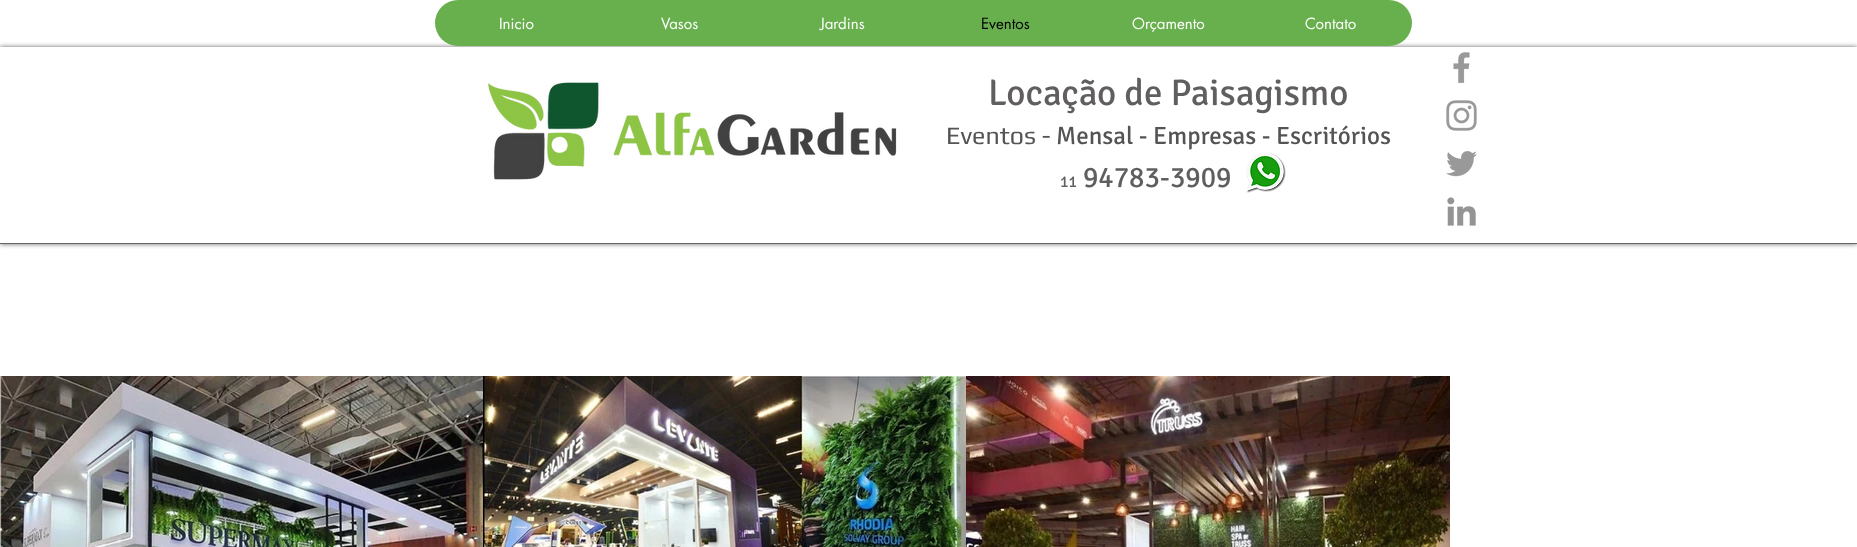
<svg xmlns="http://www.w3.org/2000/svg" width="1857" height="547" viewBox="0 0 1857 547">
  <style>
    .t1 { font: 15px futura; fill: #fff; }
    .t2 { font: 15px futura; fill: #000; }
    .t3 { font: 37px Signika; fill: #605e5e; }
    .t4 { font: 25px Play; fill: #545454; }
    .t5 { font: 25px Signika; fill: #545454; }
    .t6 { font: 16px Signika; fill: #605e5e; }
    .t7 { font: 29px Signika; fill: #605e5e; }
  </style>
  <defs>
    <clipPath id="clip1"><path d="M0 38H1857V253H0ZM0 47H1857V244H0Z" clip-rule="evenodd"/></clipPath>
  </defs>
  <rect width="100%" height="100%" fill="#fff"/>
  <g clip-path="url(#clip1)">
    <rect x="0" y="47" width="1857" height="197" fill="#00000099" filter="blur(2.5px)"/>
  </g>
  <rect x="435" y="0" width="977" height="46" rx="23" fill="#68b04d"/>
  <text x="499" y="29" class="t1">Inicio</text>
  <text x="661" y="29" class="t1">Vasos</text>
  <text x="820" y="29" class="t1">Jardins</text>
  <text x="981" y="29" class="t2">Eventos</text>
  <text x="1132" y="29" class="t1">Orçamento</text>
  <text x="1305" y="29" class="t1">Contato</text>
  <rect x="0" y="243" width="1857" height="1" fill="#666"/>
  <image x="488" y="82" width="409" height="98" href="images/1.png"/>
  <text x="988" y="105" class="t3">Locação de Paisagismo</text>
  <text x="946" y="144" class="t4">Eventos -</text>
  <text x="1056" y="144" class="t5">Mensal - Empresas - Escritórios</text>
  <image x="1453" y="52" width="17" height="32" href="images/2.png"/>
  <image x="1446" y="100" width="31" height="31" href="images/3.png"/>
  <image x="1446" y="151" width="31" height="26" href="images/4.png"/>
  <image x="1447" y="197" width="29" height="29" href="images/5.png"/>
  <text x="1060" y="187" class="t6">11</text>
  <text x="1083" y="187" class="t7">94783-3909</text>
  <image x="1246" y="152" width="40" height="41" href="images/6.png"/>
  <image x="0" y="376" width="483" height="171" href="images/7.png"/>
  <image x="483" y="376" width="483" height="171" href="images/8.png"/>
  <image x="966" y="376" width="484" height="171" href="images/9.png"/>
</svg>
